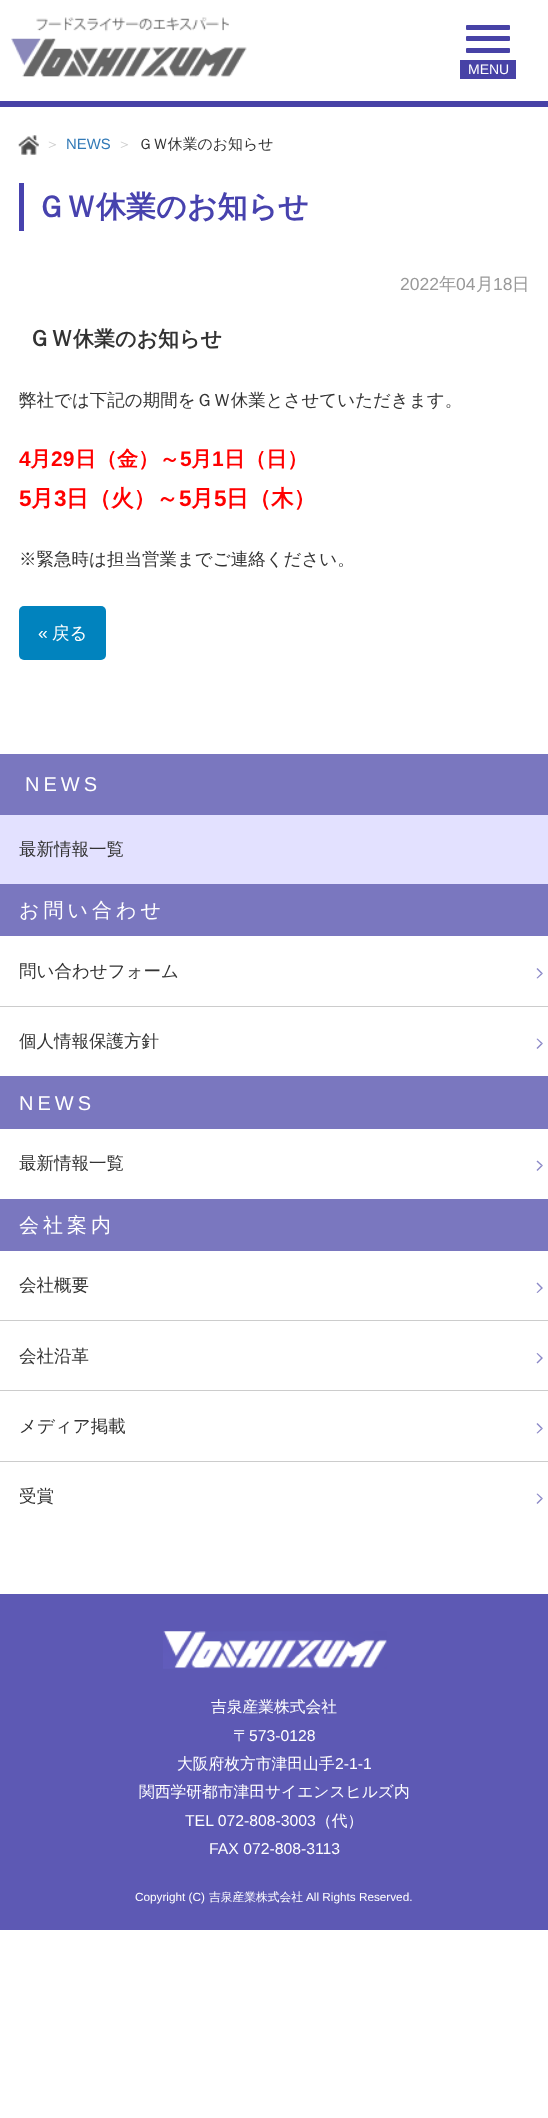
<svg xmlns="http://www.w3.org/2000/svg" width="548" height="2118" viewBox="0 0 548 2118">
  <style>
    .t1 { font: 14px Liberation Sans; fill: #fff; }
    .t2 { font: 500 14.9px WenQuanYi Zen Hei; fill: #ccc; }
    .t3 { font: 14.9px Liberation Sans; fill: #337ab7; }
    .t4 { font: 500 14.9px WenQuanYi Zen Hei; fill: #333; }
    .t5 { font: bold 30px WenQuanYi Zen Hei; fill: #4742ae; }
    .t6 { font: 17.5px Liberation Sans; fill: #999; }
    .t7 { font: 500 17.5px WenQuanYi Zen Hei; fill: #999; }
    .t8 { font: bold 22.5px WenQuanYi Zen Hei; fill: #333; }
    .t9 { font: bold 21px WenQuanYi Zen Hei; fill: #333; }
    .t10 { font: 500 17.5px WenQuanYi Zen Hei; fill: #333; }
    .t11 { font: bold 21px Liberation Sans; fill: #f00; }
    .t12 { font: bold 21px WenQuanYi Zen Hei; fill: #f00; }
    .t13 { font: bold 22.5px Liberation Sans; fill: #f00; }
    .t14 { font: bold 22.5px WenQuanYi Zen Hei; fill: #f00; }
    .t15 { font: 17.5px Liberation Sans; fill: #fff; }
    .t16 { font: 500 17.5px WenQuanYi Zen Hei; fill: #fff; }
    .t17 { font: 20px Liberation Sans; letter-spacing: 4px; fill: #fff; }
    .t18 { font: 500 20px WenQuanYi Zen Hei; letter-spacing: 4px; fill: #fff; }
    .t19 { font: 500 15.75px WenQuanYi Zen Hei; fill: #fff; }
    .t20 { font: 15.75px Liberation Sans; fill: #fff; }
    .t21 { font: 11.75px Liberation Sans; fill: #fff; }
    .t22 { font: 500 11.75px WenQuanYi Zen Hei; fill: #fff; }
  </style>
  <rect width="100%" height="100%" fill="#fff"/>
  <image x="11" y="17" width="236" height="60" href="images/1.png"/>
  <rect x="466" y="25" width="44" height="5" rx="1" fill="#4742a6"/>
  <rect x="466" y="36" width="44" height="5" rx="1" fill="#4742a6"/>
  <rect x="466" y="48" width="44" height="5" rx="1" fill="#4742a6"/>
  <rect x="460" y="60" width="56" height="19" fill="#4742a6"/>
  <text x="468" y="74" class="t1">MENU</text>
  <rect x="0" y="101" width="548" height="6" fill="#4742a6"/>
  <image x="18" y="135" width="21" height="20" href="images/2.png"/>
  <text x="45" y="149" class="t2">＞</text>
  <text x="66" y="149" class="t3">NEWS</text>
  <text x="117" y="149" class="t2">＞</text>
  <text x="138" y="149" class="t4">ＧＷ休業のお知らせ</text>
  <rect x="19" y="183" width="5" height="48" fill="#4742ae"/>
  <text x="36" y="217" class="t5">ＧＷ休業のお知らせ</text>
  <text x="400" y="290" class="t6">2022</text>
  <text x="439" y="290" class="t7">年</text>
  <text x="456" y="290" class="t6">04</text>
  <text x="476" y="290" class="t7">月</text>
  <text x="493" y="290" class="t6">18</text>
  <text x="512" y="290" class="t7">日</text>
  <text x="28" y="346" class="t8">ＧＷ</text>
  <text x="73" y="346" class="t9">休業のお知らせ</text>
  <text x="19" y="406" class="t10">弊社では下記の期間をＧＷ休業とさせていただきます。</text>
  <text x="19" y="466" class="t11">4</text>
  <text x="30" y="466" class="t12">月</text>
  <text x="51" y="466" class="t11">29</text>
  <text x="75" y="466" class="t12">日（金）～</text>
  <text x="180" y="466" class="t11">5</text>
  <text x="191" y="466" class="t12">月</text>
  <text x="212" y="466" class="t11">1</text>
  <text x="224" y="466" class="t12">日（日）</text>
  <text x="19" y="506" class="t13">5</text>
  <text x="31" y="506" class="t14">月</text>
  <text x="54" y="506" class="t13">3</text>
  <text x="66" y="506" class="t14">日（火）～</text>
  <text x="179" y="506" class="t13">5</text>
  <text x="191" y="506" class="t14">月</text>
  <text x="214" y="506" class="t13">5</text>
  <text x="226" y="506" class="t14">日（木）</text>
  <text x="19" y="565" class="t10">※緊急時は担当営業までご連絡ください。</text>
  <rect x="19" y="606" width="87" height="54" rx="5" fill="#0183be"/>
  <text x="38" y="639" class="t15">«</text>
  <text x="52" y="639" class="t16">戻る</text>
  <rect x="0" y="754" width="548" height="61" fill="#7a77bf"/>
  <text x="25" y="791" class="t17">NEWS</text>
  <rect x="0" y="815" width="548" height="69" fill="#e3e1ff"/>
  <text x="19" y="855" class="t10">最新情報一覧</text>
  <rect x="0" y="884" width="548" height="52" fill="#7a77bf"/>
  <text x="19" y="917" class="t18">お問い合わせ</text>
  <text x="19" y="977" class="t10">問い合わせフォーム</text>
  <path d="M543 973.5L537.5 978.5L536.5 978L541 973.5Z" fill="#8b88c7"/>
  <path d="M537.5 968L543 973.5H541L536.5 969Z" fill="#5955afb3"/>
  <rect x="0" y="1006" width="548" height="1" fill="#ccc"/>
  <text x="19" y="1047" class="t10">個人情報保護方針</text>
  <path d="M543 1043.5L537.5 1049L536.5 1048L541 1043.5Z" fill="#8b88c7"/>
  <path d="M537.5 1038.5L543 1043.5H541L536.5 1039Z" fill="#5955afb3"/>
  <rect x="0" y="1076" width="548" height="53" fill="#7a77bf"/>
  <text x="19" y="1110" class="t17">NEWS</text>
  <text x="19" y="1169" class="t10">最新情報一覧</text>
  <path d="M543 1165.5L537.5 1171L536.5 1170L541 1165.5Z" fill="#8b88c7"/>
  <path d="M537.5 1160.5L543 1165.5H541L536.5 1161.5Z" fill="#5955afb3"/>
  <rect x="0" y="1199" width="548" height="52" fill="#7a77bf"/>
  <text x="19" y="1232" class="t18">会社案内</text>
  <text x="19" y="1291" class="t10">会社概要</text>
  <path d="M543 1288L537.5 1293L536.5 1292.5L541 1288ZM537.5 1282.5L543 1288H541L536.5 1283.5Z" fill="#8b88c7"/>
  <rect x="0" y="1320" width="548" height="1" fill="#ccc"/>
  <text x="19" y="1362" class="t10">会社沿革</text>
  <path d="M543 1358L537.5 1363.5L536.5 1362.5L541 1358ZM537.5 1353L543 1358H541L536.5 1353.5Z" fill="#8b88c7"/>
  <rect x="0" y="1390" width="548" height="1" fill="#ccc"/>
  <text x="19" y="1432" class="t10">メディア掲載</text>
  <path d="M543 1428.5L537.5 1433.5L536.5 1433L541 1428.5Z" fill="#8b88c7"/>
  <path d="M537.5 1423L543 1428.5H541L536.5 1424Z" fill="#5955afb3"/>
  <rect x="0" y="1461" width="548" height="1" fill="#ccc"/>
  <text x="19" y="1502" class="t10">受賞</text>
  <path d="M543 1498.5L537.5 1504L536.5 1503L541 1498.5Z" fill="#8b88c7"/>
  <path d="M537.5 1493.5L543 1498.5H541L536.5 1494Z" fill="#5955afb3"/>
  <rect x="0" y="1594" width="548" height="336" fill="#5d59b4"/>
  <image x="163" y="1631" width="224" height="38" href="images/3.png"/>
  <text x="211" y="1712" class="t19">吉泉産業株式会社</text>
  <text x="233" y="1741" class="t19">〒</text>
  <text x="249" y="1741" class="t20">573-0128</text>
  <text x="177" y="1769" class="t19">大阪府枚方市津田山手</text>
  <text x="335" y="1769" class="t20">2-1-1</text>
  <text x="139" y="1797" class="t19">関西学研都市津田サイエンスヒルズ内</text>
  <text x="185" y="1826" class="t20">TEL 072-808-3003</text>
  <text x="316" y="1826" class="t19">（代）</text>
  <text x="209" y="1854" class="t20">FAX 072-808-3113</text>
  <text x="135" y="1901" class="t21">Copyright (C)</text>
  <text x="209" y="1901" class="t22">吉泉産業株式会社</text>
  <text x="306" y="1901" class="t21">All Rights Reserved.</text>
</svg>
